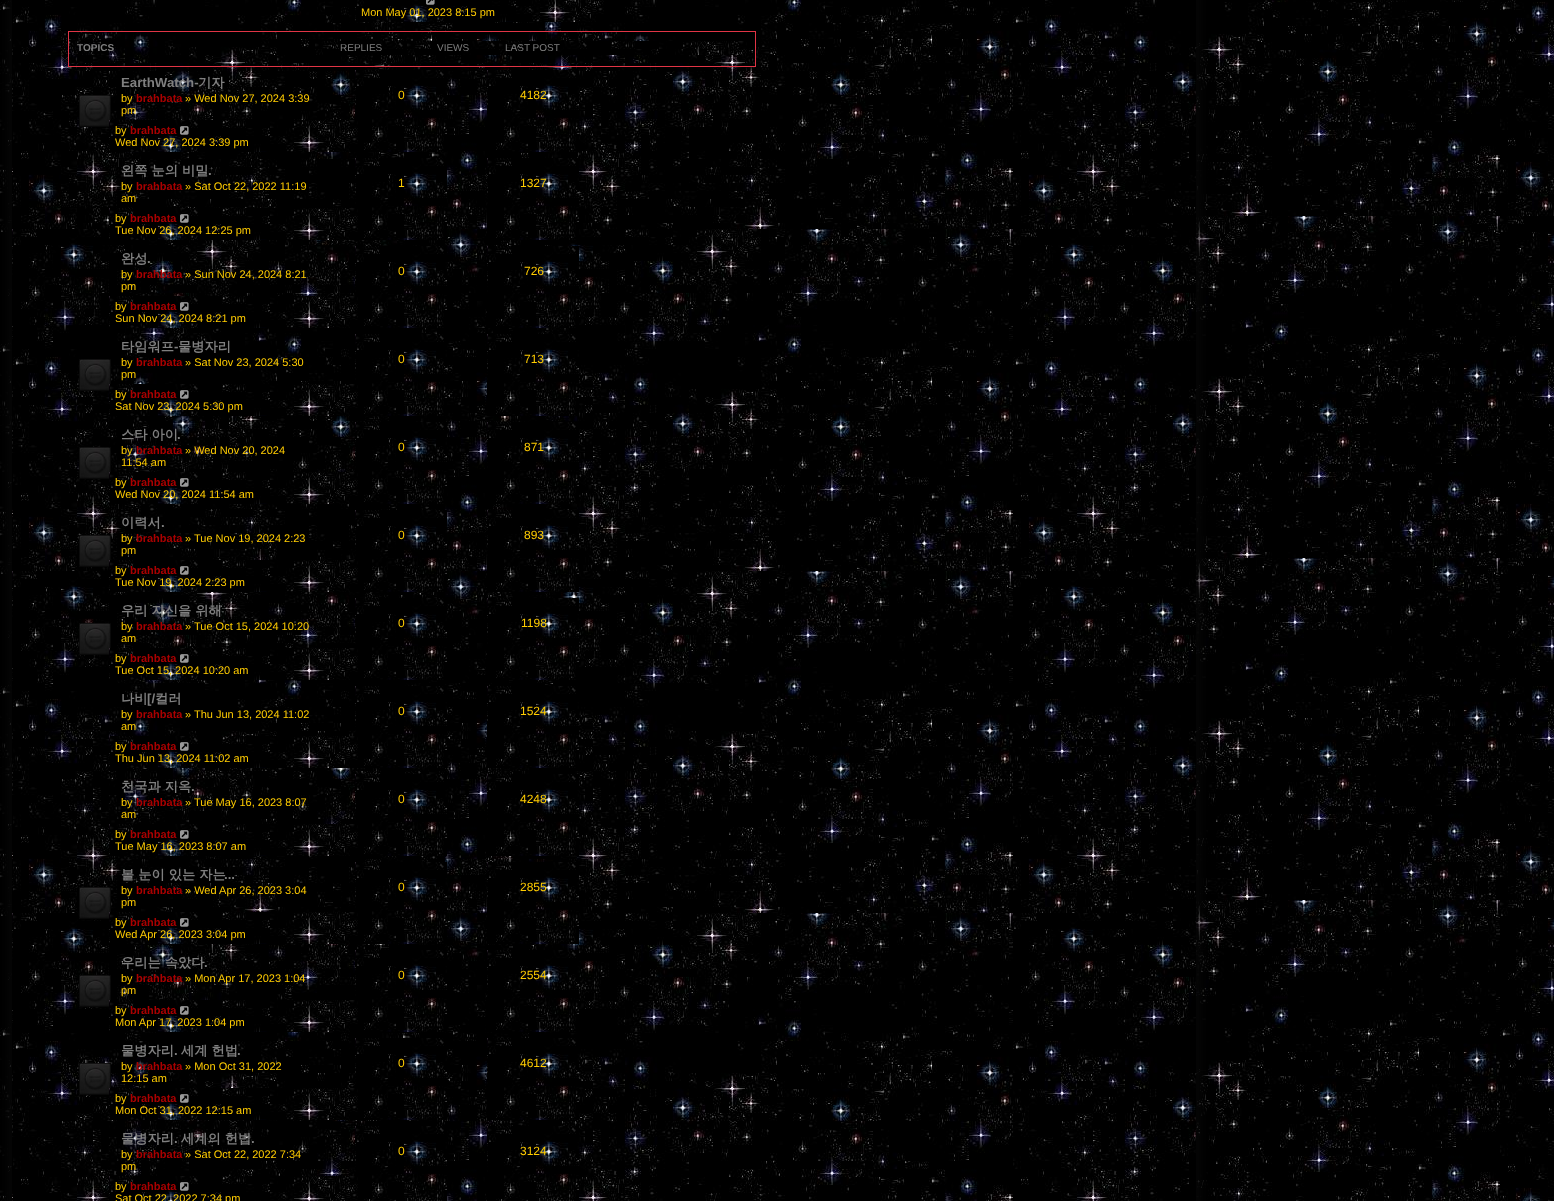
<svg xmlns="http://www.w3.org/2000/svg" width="1554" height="1201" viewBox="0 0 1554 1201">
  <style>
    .t1 { font: 11px Liberation Sans; fill: #fc0; }
    .t2 { font: bold 10px Liberation Sans; fill: #7f7f7f; }
    .t3 { font: 10px Liberation Sans; fill: #7f7f7f; }
    .t4 { font: bold 13.25px Liberation Sans; fill: #7f7f7f; }
    .t5 { font: bold 13.25px WenQuanYi Zen Hei; fill: #7f7f7f; }
    .t6 { font: bold 11px Liberation Sans; fill: #a00; }
    .t7 { font: 12px Liberation Sans; fill: #fc0; }
  </style>
  <rect width="100%" height="100%" fill="#fff"/>
  <image x="0" y="0" width="1554" height="1201" href="images/1.png"/>
  <rect x="7" y="-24" width="1194" height="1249" rx="10" fill="#050505e6" filter="blur(4.5px)"/>
  <image x="12" y="0" width="1184" height="1201" href="images/2.png"/>
  <image x="355" y="0" width="249" height="22" href="images/3.png"/>
  <image x="426" y="0" width="9" height="5" href="images/4.png"/>
  <text x="361" y="16" class="t1">Mon May 01, 2023 8:15 pm</text>
  <rect x="68.5" y="31.5" width="687" height="35" fill="none" stroke="#e13445"/>
  <image x="74" y="43" width="17" height="12" href="images/5.png"/>
  <text x="77" y="51" class="t2">TOPICS</text>
  <image x="315" y="41" width="92" height="14" href="images/6.png"/>
  <text x="340" y="51" class="t3">REPLIES</text>
  <image x="407" y="41" width="92" height="14" href="images/6.png"/>
  <text x="437" y="51" class="t3">VIEWS</text>
  <image x="499" y="41" width="250" height="14" href="images/7.png"/>
  <text x="505" y="51" class="t3">LAST POST</text>
  <image x="79" y="95" width="32" height="32" href="images/8.png"/>
  <text x="121" y="87" class="t4">EarthWatch-</text>
  <text x="198" y="87" class="t5">기자</text>
  <text x="121" y="102" class="t1">by</text>
  <text x="136" y="102" class="t6">brahbata</text>
  <text x="185" y="102" class="t1">» Wed Nov 27, 2024 3:39</text>
  <text x="121" y="114" class="t1">pm</text>
  <image x="355" y="70" width="92" height="82" href="images/9.png"/>
  <text x="398" y="99" class="t7">0</text>
  <image x="487" y="70" width="92" height="82" href="images/9.png"/>
  <text x="520" y="99" class="t7">4182</text>
  <image x="109" y="120" width="249" height="32" href="images/10.png"/>
  <text x="115" y="134" class="t1">by</text>
  <text x="130" y="134" class="t6">brahbata</text>
  <image x="180" y="126" width="9" height="9" href="images/11.png"/>
  <text x="115" y="146" class="t1">Wed Nov 27, 2024 3:39 pm</text>
  <text x="121" y="175" class="t5">왼쪽 눈의 비밀</text>
  <text x="208" y="175" class="t4">.</text>
  <text x="121" y="190" class="t1">by</text>
  <text x="136" y="190" class="t6">brahbata</text>
  <text x="185" y="190" class="t1">» Sat Oct 22, 2022 11:19</text>
  <text x="121" y="202" class="t1">am</text>
  <image x="355" y="158" width="92" height="82" href="images/9.png"/>
  <text x="398" y="187" class="t7">1</text>
  <image x="487" y="158" width="92" height="82" href="images/9.png"/>
  <text x="520" y="187" class="t7">1327</text>
  <image x="109" y="208" width="249" height="32" href="images/10.png"/>
  <text x="115" y="222" class="t1">by</text>
  <text x="130" y="222" class="t6">brahbata</text>
  <image x="180" y="214" width="9" height="9" href="images/11.png"/>
  <text x="115" y="234" class="t1">Tue Nov 26, 2024 12:25 pm</text>
  <text x="121" y="263" class="t5">완성</text>
  <text x="147" y="263" class="t4">.</text>
  <text x="121" y="278" class="t1">by</text>
  <text x="136" y="278" class="t6">brahbata</text>
  <text x="185" y="278" class="t1">» Sun Nov 24, 2024 8:21</text>
  <text x="121" y="290" class="t1">pm</text>
  <image x="355" y="246" width="92" height="82" href="images/9.png"/>
  <text x="398" y="275" class="t7">0</text>
  <image x="487" y="246" width="92" height="82" href="images/9.png"/>
  <text x="524" y="275" class="t7">726</text>
  <image x="109" y="296" width="249" height="32" href="images/10.png"/>
  <text x="115" y="310" class="t1">by</text>
  <text x="130" y="310" class="t6">brahbata</text>
  <image x="180" y="302" width="9" height="9" href="images/11.png"/>
  <text x="115" y="322" class="t1">Sun Nov 24, 2024 8:21 pm</text>
  <image x="79" y="359" width="32" height="32" href="images/8.png"/>
  <text x="121" y="351" class="t5">타임워프</text>
  <text x="174" y="351" class="t4">-</text>
  <text x="178" y="351" class="t5">물병자리</text>
  <text x="121" y="366" class="t1">by</text>
  <text x="136" y="366" class="t6">brahbata</text>
  <text x="185" y="366" class="t1">» Sat Nov 23, 2024 5:30</text>
  <text x="121" y="378" class="t1">pm</text>
  <image x="355" y="334" width="92" height="82" href="images/9.png"/>
  <text x="398" y="363" class="t7">0</text>
  <image x="487" y="334" width="92" height="82" href="images/9.png"/>
  <text x="524" y="363" class="t7">713</text>
  <image x="109" y="384" width="249" height="32" href="images/10.png"/>
  <text x="115" y="398" class="t1">by</text>
  <text x="130" y="398" class="t6">brahbata</text>
  <image x="180" y="390" width="9" height="9" href="images/11.png"/>
  <text x="115" y="410" class="t1">Sat Nov 23, 2024 5:30 pm</text>
  <image x="79" y="447" width="32" height="32" href="images/8.png"/>
  <text x="121" y="439" class="t5">스타 아이</text>
  <text x="177" y="439" class="t4">.</text>
  <text x="121" y="454" class="t1">by</text>
  <text x="136" y="454" class="t6">brahbata</text>
  <text x="185" y="454" class="t1">» Wed Nov 20, 2024</text>
  <text x="121" y="466" class="t1">11:54 am</text>
  <image x="355" y="422" width="92" height="82" href="images/9.png"/>
  <text x="398" y="451" class="t7">0</text>
  <image x="487" y="422" width="92" height="82" href="images/9.png"/>
  <text x="524" y="451" class="t7">871</text>
  <image x="109" y="472" width="249" height="32" href="images/10.png"/>
  <text x="115" y="486" class="t1">by</text>
  <text x="130" y="486" class="t6">brahbata</text>
  <image x="180" y="478" width="9" height="9" href="images/11.png"/>
  <text x="115" y="498" class="t1">Wed Nov 20, 2024 11:54 am</text>
  <image x="79" y="535" width="32" height="32" href="images/8.png"/>
  <text x="121" y="527" class="t5">이력서</text>
  <text x="161" y="527" class="t4">.</text>
  <text x="121" y="542" class="t1">by</text>
  <text x="136" y="542" class="t6">brahbata</text>
  <text x="185" y="542" class="t1">» Tue Nov 19, 2024 2:23</text>
  <text x="121" y="554" class="t1">pm</text>
  <image x="355" y="510" width="92" height="82" href="images/9.png"/>
  <text x="398" y="539" class="t7">0</text>
  <image x="487" y="510" width="92" height="82" href="images/9.png"/>
  <text x="524" y="539" class="t7">893</text>
  <image x="109" y="560" width="249" height="32" href="images/10.png"/>
  <text x="115" y="574" class="t1">by</text>
  <text x="130" y="574" class="t6">brahbata</text>
  <image x="180" y="566" width="9" height="9" href="images/11.png"/>
  <text x="115" y="586" class="t1">Tue Nov 19, 2024 2:23 pm</text>
  <image x="79" y="623" width="32" height="32" href="images/8.png"/>
  <text x="121" y="615" class="t5">우리 자신을 위해</text>
  <text x="121" y="630" class="t1">by</text>
  <text x="136" y="630" class="t6">brahbata</text>
  <text x="185" y="630" class="t1">» Tue Oct 15, 2024 10:20</text>
  <text x="121" y="642" class="t1">am</text>
  <image x="355" y="598" width="92" height="82" href="images/9.png"/>
  <text x="398" y="627" class="t7">0</text>
  <image x="487" y="598" width="92" height="82" href="images/9.png"/>
  <text x="521" y="627" class="t7">1198</text>
  <image x="109" y="648" width="249" height="32" href="images/10.png"/>
  <text x="115" y="662" class="t1">by</text>
  <text x="130" y="662" class="t6">brahbata</text>
  <image x="180" y="654" width="9" height="9" href="images/11.png"/>
  <text x="115" y="674" class="t1">Tue Oct 15, 2024 10:20 am</text>
  <text x="121" y="703" class="t5">나비</text>
  <text x="147" y="703" class="t4">[/</text>
  <text x="155" y="703" class="t5">컬러</text>
  <text x="121" y="718" class="t1">by</text>
  <text x="136" y="718" class="t6">brahbata</text>
  <text x="185" y="718" class="t1">» Thu Jun 13, 2024 11:02</text>
  <text x="121" y="730" class="t1">am</text>
  <image x="355" y="686" width="92" height="82" href="images/9.png"/>
  <text x="398" y="715" class="t7">0</text>
  <image x="487" y="686" width="92" height="82" href="images/9.png"/>
  <text x="520" y="715" class="t7">1524</text>
  <image x="109" y="736" width="249" height="32" href="images/10.png"/>
  <text x="115" y="750" class="t1">by</text>
  <text x="130" y="750" class="t6">brahbata</text>
  <image x="180" y="742" width="9" height="9" href="images/11.png"/>
  <text x="115" y="762" class="t1">Thu Jun 13, 2024 11:02 am</text>
  <text x="121" y="791" class="t5">천국과 지옥</text>
  <text x="191" y="791" class="t4">.</text>
  <text x="121" y="806" class="t1">by</text>
  <text x="136" y="806" class="t6">brahbata</text>
  <text x="185" y="806" class="t1">» Tue May 16, 2023 8:07</text>
  <text x="121" y="818" class="t1">am</text>
  <image x="355" y="774" width="92" height="82" href="images/9.png"/>
  <text x="398" y="803" class="t7">0</text>
  <image x="487" y="774" width="92" height="82" href="images/9.png"/>
  <text x="520" y="803" class="t7">4248</text>
  <image x="109" y="824" width="249" height="32" href="images/10.png"/>
  <text x="115" y="838" class="t1">by</text>
  <text x="130" y="838" class="t6">brahbata</text>
  <image x="180" y="830" width="9" height="9" href="images/11.png"/>
  <text x="115" y="850" class="t1">Tue May 16, 2023 8:07 am</text>
  <image x="79" y="887" width="32" height="32" href="images/8.png"/>
  <text x="121" y="879" class="t5">볼 눈이 있는 자는</text>
  <text x="224" y="879" class="t4">...</text>
  <text x="121" y="894" class="t1">by</text>
  <text x="136" y="894" class="t6">brahbata</text>
  <text x="185" y="894" class="t1">» Wed Apr 26, 2023 3:04</text>
  <text x="121" y="906" class="t1">pm</text>
  <image x="355" y="862" width="92" height="82" href="images/9.png"/>
  <text x="398" y="891" class="t7">0</text>
  <image x="487" y="862" width="92" height="82" href="images/9.png"/>
  <text x="520" y="891" class="t7">2855</text>
  <image x="109" y="912" width="249" height="32" href="images/10.png"/>
  <text x="115" y="926" class="t1">by</text>
  <text x="130" y="926" class="t6">brahbata</text>
  <image x="180" y="918" width="9" height="9" href="images/11.png"/>
  <text x="115" y="938" class="t1">Wed Apr 26, 2023 3:04 pm</text>
  <image x="79" y="975" width="32" height="32" href="images/8.png"/>
  <text x="121" y="967" class="t5">우리는 속았다</text>
  <text x="204" y="967" class="t4">.</text>
  <text x="121" y="982" class="t1">by</text>
  <text x="136" y="982" class="t6">brahbata</text>
  <text x="185" y="982" class="t1">» Mon Apr 17, 2023 1:04</text>
  <text x="121" y="994" class="t1">pm</text>
  <image x="355" y="950" width="92" height="82" href="images/9.png"/>
  <text x="398" y="979" class="t7">0</text>
  <image x="487" y="950" width="92" height="82" href="images/9.png"/>
  <text x="520" y="979" class="t7">2554</text>
  <image x="109" y="1000" width="249" height="32" href="images/10.png"/>
  <text x="115" y="1014" class="t1">by</text>
  <text x="130" y="1014" class="t6">brahbata</text>
  <image x="180" y="1006" width="9" height="9" href="images/11.png"/>
  <text x="115" y="1026" class="t1">Mon Apr 17, 2023 1:04 pm</text>
  <image x="79" y="1063" width="32" height="32" href="images/8.png"/>
  <text x="121" y="1055" class="t5">물병자리</text>
  <text x="174" y="1055" class="t4">.</text>
  <text x="181" y="1055" class="t5">세계 헌법</text>
  <text x="237" y="1055" class="t4">.</text>
  <text x="121" y="1070" class="t1">by</text>
  <text x="136" y="1070" class="t6">brahbata</text>
  <text x="185" y="1070" class="t1">» Mon Oct 31, 2022</text>
  <text x="121" y="1082" class="t1">12:15 am</text>
  <image x="355" y="1038" width="92" height="82" href="images/9.png"/>
  <text x="398" y="1067" class="t7">0</text>
  <image x="487" y="1038" width="92" height="82" href="images/9.png"/>
  <text x="520" y="1067" class="t7">4612</text>
  <image x="109" y="1088" width="249" height="32" href="images/10.png"/>
  <text x="115" y="1102" class="t1">by</text>
  <text x="130" y="1102" class="t6">brahbata</text>
  <image x="180" y="1094" width="9" height="9" href="images/11.png"/>
  <text x="115" y="1114" class="t1">Mon Oct 31, 2022 12:15 am</text>
  <text x="121" y="1143" class="t5">물병자리</text>
  <text x="174" y="1143" class="t4">.</text>
  <text x="181" y="1143" class="t5">세계의 헌법</text>
  <text x="251" y="1143" class="t4">.</text>
  <text x="121" y="1158" class="t1">by</text>
  <text x="136" y="1158" class="t6">brahbata</text>
  <text x="185" y="1158" class="t1">» Sat Oct 22, 2022 7:34</text>
  <text x="121" y="1170" class="t1">pm</text>
  <image x="355" y="1126" width="92" height="75" href="images/12.png"/>
  <text x="398" y="1155" class="t7">0</text>
  <image x="487" y="1126" width="92" height="75" href="images/12.png"/>
  <text x="520" y="1155" class="t7">3124</text>
  <image x="109" y="1176" width="249" height="25" href="images/13.png"/>
  <text x="115" y="1190" class="t1">by</text>
  <text x="130" y="1190" class="t6">brahbata</text>
  <image x="180" y="1182" width="9" height="9" href="images/11.png"/>
  <text x="115" y="1202" class="t1">Sat Oct 22, 2022 7:34 pm</text>
</svg>
